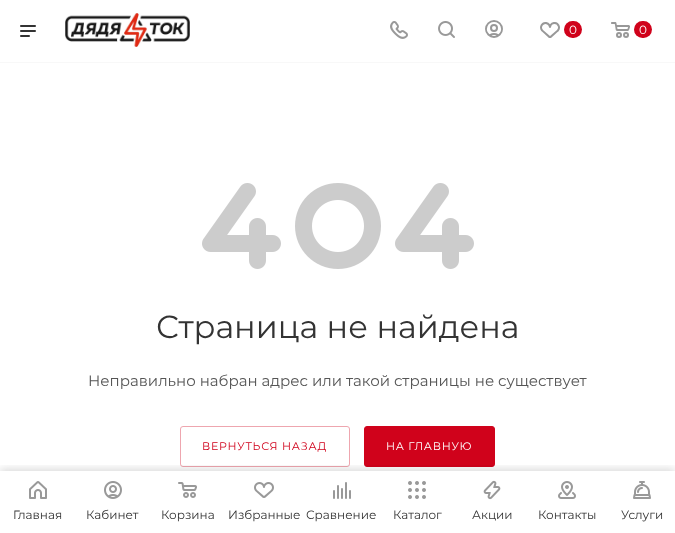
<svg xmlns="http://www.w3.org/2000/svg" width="675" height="533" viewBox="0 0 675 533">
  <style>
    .t1 { font: 12px Montserrat; fill: #fff; }
    .t2 { font: 32px Montserrat; fill: #333; }
    .t3 { font: 15px Montserrat; fill: #555; }
    .t4 { font: 11px Montserrat; letter-spacing: 0.75px; fill: #d0021b; }
    .t5 { font: 11px Montserrat; letter-spacing: 0.75px; fill: #fff; }
    .t6 { font: 12px Montserrat; fill: #333; }
  </style>
  <defs>
    <clipPath id="clip1"><rect x="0" y="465" width="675" height="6"/></clipPath>
  </defs>
  <rect width="100%" height="100%" fill="#fff"/>
  <rect x="0" y="62" width="675" height="1" fill="#f8f8f8"/>
  <image x="20" y="25" width="16" height="12" href="images/1.png"/>
  <image x="65" y="13" width="125" height="34" href="images/2.png"/>
  <image x="390" y="21" width="18" height="18" href="images/3.png"/>
  <image x="438" y="21" width="17" height="17" href="images/4.png"/>
  <image x="485" y="20" width="18" height="18" href="images/5.png"/>
  <image x="540" y="22" width="20" height="16" href="images/6.png"/>
  <rect x="564" y="21" width="18" height="17" rx="8.5" fill="#d0021b"/>
  <text x="569" y="34" class="t1">0</text>
  <image x="611" y="22" width="19" height="16" href="images/7.png"/>
  <rect x="634" y="21" width="18" height="17" rx="8.5" fill="#d0021b"/>
  <text x="639" y="34" class="t1">0</text>
  <image x="202" y="183" width="272" height="86" href="images/8.png"/>
  <text x="156" y="338" class="t2">Страница не найдена</text>
  <text x="88" y="386" class="t3">Неправильно набран адрес или такой страницы не существует</text>
  <rect x="180.5" y="426.5" width="169" height="40" rx="2.5" fill="none" stroke="#eea6af"/>
  <text x="202" y="450" class="t4">ВЕРНУТЬСЯ НАЗАД</text>
  <rect x="364.5" y="426.5" width="130" height="40" rx="2.5" fill="#d0021b" stroke="#d0021b"/>
  <text x="386" y="450" class="t5">НА ГЛАВНУЮ</text>
  <g clip-path="url(#clip1)">
    <rect x="0" y="469" width="675" height="62" fill="#00000026" filter="blur(4px)"/>
  </g>
  <image x="29" y="481" width="18" height="18" href="images/9.png"/>
  <text x="13" y="519" class="t6">Главная</text>
  <image x="104" y="481" width="18" height="18" href="images/10.png"/>
  <text x="86" y="519" class="t6">Кабинет</text>
  <image x="178" y="482" width="19" height="16" href="images/11.png"/>
  <text x="161" y="519" class="t6">Корзина</text>
  <image x="254" y="482" width="20" height="16" href="images/12.png"/>
  <text x="228" y="519" class="t6">Избранные</text>
  <image x="333" y="482" width="18" height="17" href="images/13.png"/>
  <text x="306" y="519" class="t6">Сравнение</text>
  <image x="408" y="481" width="18" height="18" href="images/14.png"/>
  <text x="393" y="519" class="t6">Каталог</text>
  <image x="483" y="480" width="18" height="20" href="images/15.png"/>
  <text x="472" y="519" class="t6">Акции</text>
  <image x="558" y="481" width="18" height="18" href="images/16.png"/>
  <text x="538" y="519" class="t6">Контакты</text>
  <image x="633" y="481" width="18" height="18" href="images/17.png"/>
  <text x="621" y="519" class="t6">Услуги</text>
</svg>
